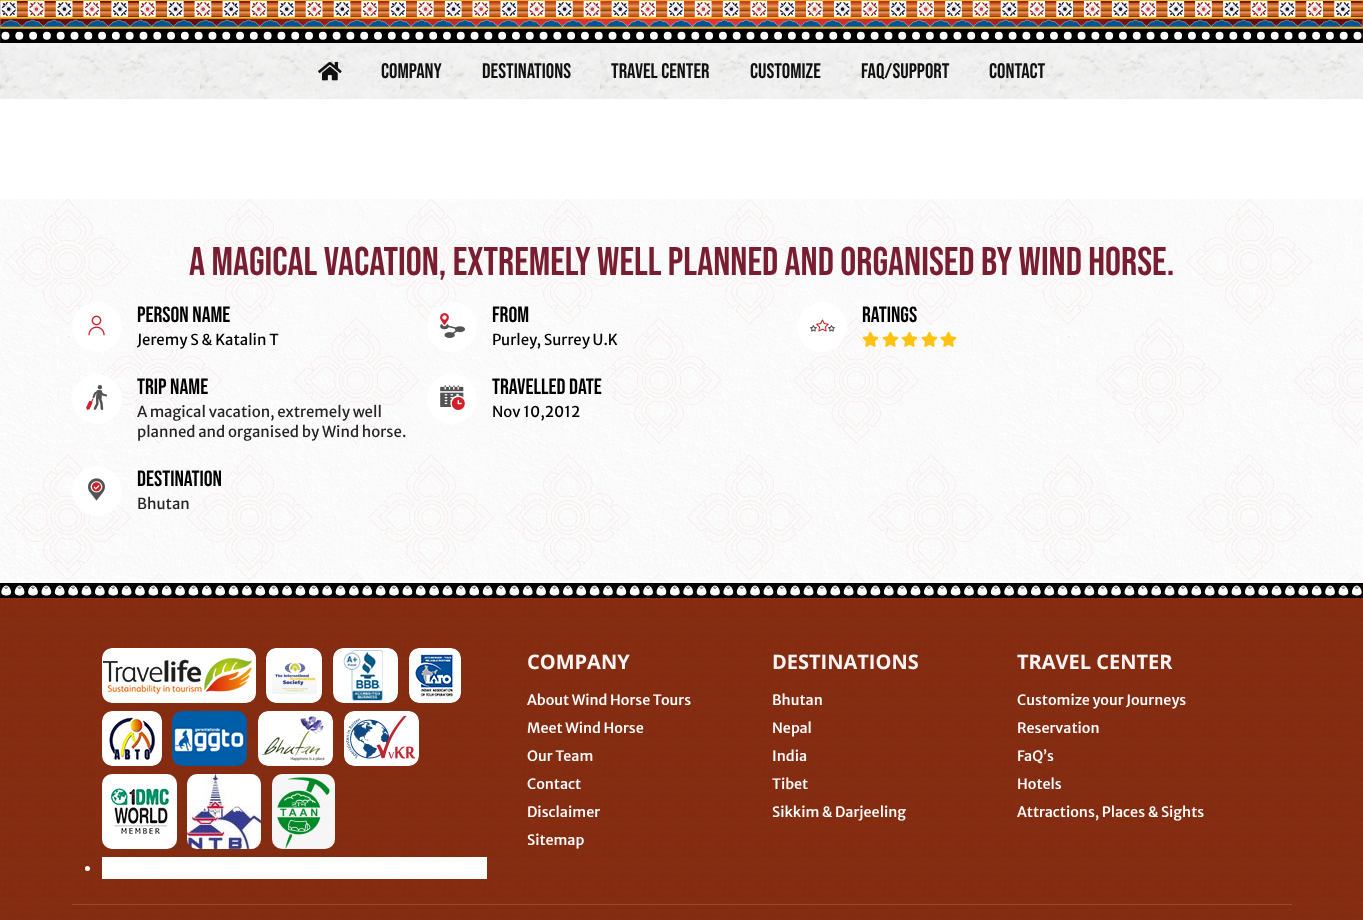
<svg xmlns="http://www.w3.org/2000/svg" width="1363" height="920" viewBox="0 0 1363 920">
  <style>
    .t1 { font: 21px Bebas Neue; fill: #111; }
    .t2 { font: 40px Bebas Neue; fill: #791e30; }
    .t3 { font: 22px Bebas Neue; fill: #000; }
    .t4 { font: 15px Merriweather Sans; fill: #000; }
    .t5 { font: 15px Merriweather Sans; fill: #252525; }
    .t6 { font: bold 20px Open Sans; fill: #f9f4f3; }
    .t7 { font: 500 14.25px Merriweather Sans; fill: #fff; }
  </style>
  <rect width="100%" height="100%" fill="#fff"/>
  <image x="0" y="0" width="1363" height="99" href="images/1.png"/>
  <image x="0" y="0" width="1363" height="43" href="images/2.png"/>
  <image x="318" y="61" width="24" height="20" href="images/3.png"/>
  <text x="381" y="78" class="t1">Company</text>
  <text x="482" y="78" class="t1">Destinations</text>
  <text x="611" y="78" class="t1">Travel Center</text>
  <text x="750" y="78" class="t1">Customize</text>
  <text x="861" y="78" class="t1">FAQ/Support</text>
  <text x="989" y="78" class="t1">Contact</text>
  <image x="0" y="199" width="1363" height="384" href="images/4.png"/>
  <text x="189" y="275" class="t2">A MAGICAL VACATION, EXTREMELY WELL PLANNED AND ORGANISED BY WIND HORSE.</text>
  <circle cx="97" cy="327" r="25" fill="#fff"/>
  <image x="88" y="315" width="17" height="21" href="images/5.png"/>
  <text x="137" y="322" class="t3">Person Name</text>
  <text x="137" y="345" class="t4">Jeremy S &amp; Katalin T</text>
  <circle cx="452" cy="327" r="25" fill="#fff"/>
  <image x="440" y="313" width="25" height="25" href="images/6.png"/>
  <text x="492" y="322" class="t3">From</text>
  <text x="492" y="345" class="t4">Purley, Surrey U.K</text>
  <circle cx="97" cy="399" r="25" fill="#fff"/>
  <image x="86" y="385" width="22" height="25" href="images/7.png"/>
  <text x="137" y="394" class="t3">Trip Name</text>
  <text x="137" y="417" class="t5">A magical vacation, extremely well</text>
  <text x="137" y="437" class="t5">planned and organised by Wind horse.</text>
  <circle cx="452" cy="399" r="25" fill="#fff"/>
  <image x="440" y="385" width="25" height="25" href="images/8.png"/>
  <text x="492" y="394" class="t3">Travelled Date</text>
  <text x="492" y="417" class="t4">Nov 10,2012</text>
  <circle cx="97" cy="491" r="25" fill="#fff"/>
  <image x="88" y="478" width="17" height="23" href="images/9.png"/>
  <text x="137" y="486" class="t3">Destination</text>
  <text x="137" y="509" class="t5">Bhutan</text>
  <circle cx="822" cy="327" r="25" fill="#fff"/>
  <image x="810" y="319" width="25" height="13" href="images/10.png"/>
  <text x="862" y="322" class="t3">Ratings</text>
  <image x="862" y="331" width="17" height="16" href="images/11.png"/>
  <image x="882" y="331" width="17" height="16" href="images/12.png"/>
  <image x="901" y="331" width="17" height="16" href="images/13.png"/>
  <image x="921" y="331" width="17" height="16" href="images/14.png"/>
  <image x="940" y="331" width="17" height="16" href="images/15.png"/>
  <rect x="0" y="583" width="1363" height="337" fill="#000"/>
  <image x="0" y="583" width="1363" height="337" href="images/16.png"/>
  <image x="0" y="583" width="1363" height="15" href="images/17.png"/>
  <rect x="72" y="904" width="1220" height="1" fill="#ffffff24"/>
  <image x="102" y="648" width="154" height="55" href="images/18.png"/>
  <image x="266" y="648" width="56" height="55" href="images/19.png"/>
  <image x="333" y="648" width="65" height="55" href="images/20.png"/>
  <image x="409" y="648" width="52" height="55" href="images/21.png"/>
  <image x="102" y="711" width="60" height="55" href="images/22.png"/>
  <image x="172" y="711" width="75" height="55" href="images/23.png"/>
  <image x="258" y="711" width="75" height="55" href="images/24.png"/>
  <image x="344" y="711" width="75" height="55" href="images/25.png"/>
  <image x="102" y="774" width="75" height="75" href="images/26.png"/>
  <image x="187" y="774" width="74" height="75" href="images/27.png"/>
  <image x="272" y="774" width="63" height="75" href="images/28.png"/>
  <rect x="102" y="857" width="385" height="22" fill="#fff"/>
  <circle cx="87.5" cy="868.5" r="2.5" fill="#fff"/>
  <text x="527" y="669" class="t6">COMPANY</text>
  <text x="527" y="705" class="t7">About Wind Horse Tours</text>
  <text x="527" y="733" class="t7">Meet Wind Horse</text>
  <text x="527" y="761" class="t7">Our Team</text>
  <text x="527" y="789" class="t7">Contact</text>
  <text x="527" y="817" class="t7">Disclaimer</text>
  <text x="527" y="845" class="t7">Sitemap</text>
  <text x="772" y="669" class="t6">DESTINATIONS</text>
  <text x="772" y="705" class="t7">Bhutan</text>
  <text x="772" y="733" class="t7">Nepal</text>
  <text x="772" y="761" class="t7">India</text>
  <text x="772" y="789" class="t7">Tibet</text>
  <text x="772" y="817" class="t7">Sikkim &amp; Darjeeling</text>
  <text x="1017" y="669" class="t6">TRAVEL CENTER</text>
  <text x="1017" y="705" class="t7">Customize your Journeys</text>
  <text x="1017" y="733" class="t7">Reservation</text>
  <text x="1017" y="761" class="t7">FaQ’s</text>
  <text x="1017" y="789" class="t7">Hotels</text>
  <text x="1017" y="817" class="t7">Attractions, Places &amp; Sights</text>
</svg>
